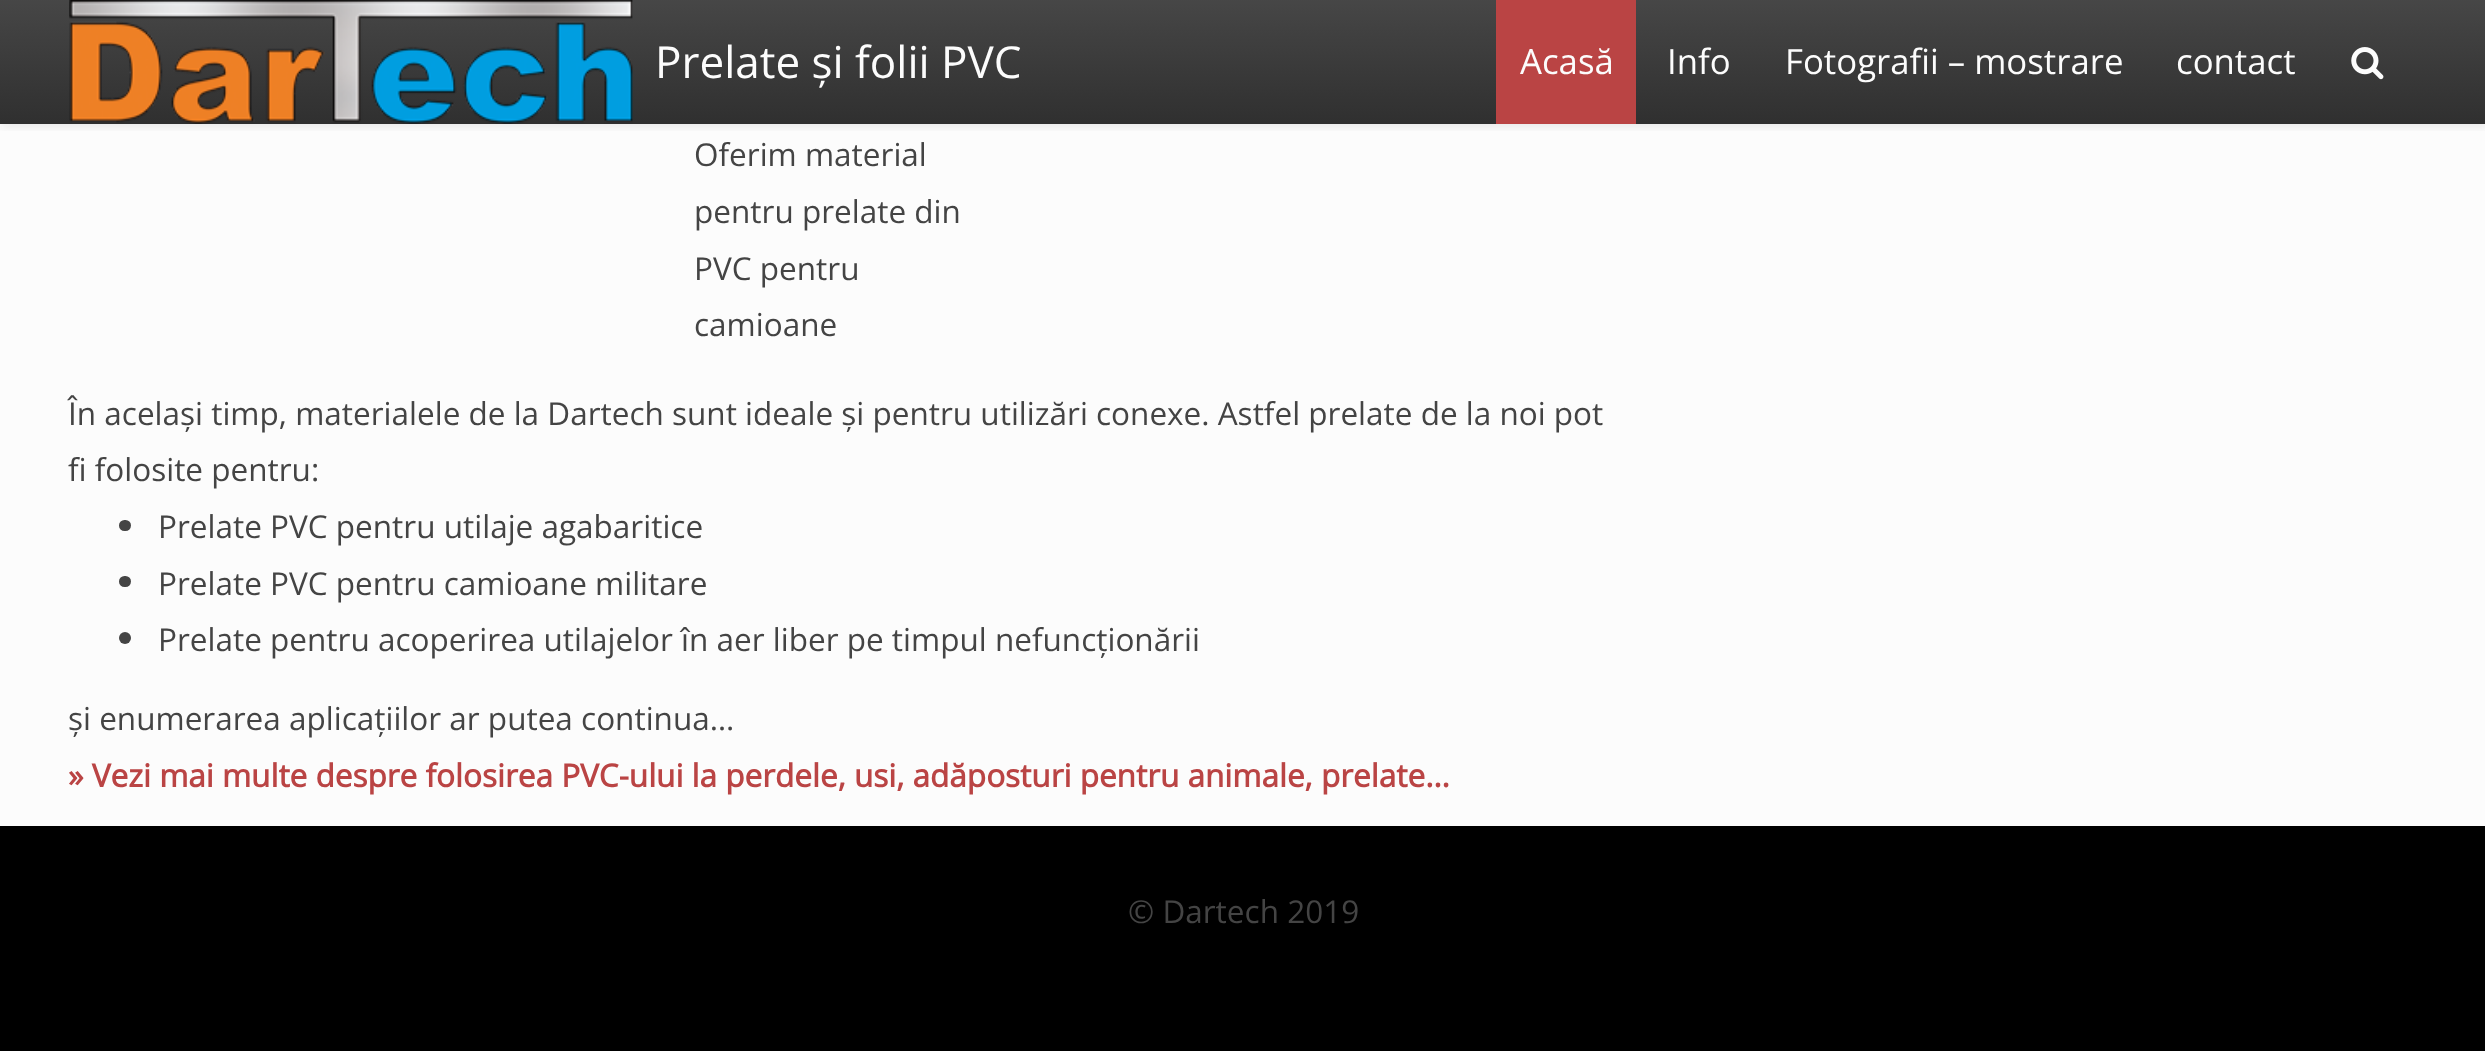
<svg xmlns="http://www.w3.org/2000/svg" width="2485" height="1051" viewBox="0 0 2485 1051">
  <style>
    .t1 { font: 44px Open Sans; fill: #fcfcfc; }
    .t2 { font: 34.75px Open Sans; fill: #fcfcfc; }
    .t3 { font: 31.5px Open Sans; fill: #444; }
    .t4 { font: bold 31.5px Open Sans; fill: #ba4444; }
  </style>
  <defs>
    <clipPath id="clip1"><rect x="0" y="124" width="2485" height="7"/></clipPath>
    <linearGradient id="g1" gradientUnits="userSpaceOnUse" x1="1243" y1="0" x2="1243" y2="124"><stop offset="0" stop-color="#191919" stop-opacity="0.8"/><stop offset="1" stop-color="#191919" stop-opacity="0.9"/></linearGradient>
  </defs>
  <rect width="100%" height="100%" fill="#000"/>
  <rect x="0" y="0" width="2485" height="826" fill="#fcfcfc"/>
  <g clip-path="url(#clip1)">
    <rect x="2" y="2" width="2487" height="124" fill="#1919191a" filter="blur(5.5px)"/>
  </g>
  <rect x="0" y="0" width="2485" height="124" fill="url(#g1)"/>
  <image x="69" y="0" width="564" height="124" href="images/1.png"/>
  <text x="655" y="78" class="t1">Prelate și folii PVC</text>
  <rect x="1496" y="0" width="140" height="124" fill="#ba4444"/>
  <text x="1520" y="74" class="t2">Acasă</text>
  <text x="1667" y="74" class="t2">Info</text>
  <text x="1785" y="74" class="t2">Fotografii – mostrare</text>
  <text x="2176" y="74" class="t2">contact</text>
  <image x="2351" y="47" width="33" height="33" href="images/2.png"/>
  <text x="694" y="166" class="t3">Oferim material</text>
  <text x="694" y="223" class="t3">pentru prelate din</text>
  <text x="694" y="280" class="t3">PVC pentru</text>
  <text x="694" y="336" class="t3">camioane</text>
  <text x="68" y="425" class="t3">În același timp, materialele de la Dartech sunt ideale și pentru utilizări conexe. Astfel prelate de la noi pot</text>
  <text x="68" y="481" class="t3">fi folosite pentru:</text>
  <rect x="119" y="520" width="12" height="11" rx="5.5" fill="#444"/>
  <text x="158" y="538" class="t3">Prelate PVC pentru utilaje agabaritice</text>
  <rect x="119" y="576" width="12" height="11" rx="5.5" fill="#444"/>
  <text x="158" y="595" class="t3">Prelate PVC pentru camioane militare</text>
  <circle cx="125" cy="638" r="6" fill="#444"/>
  <text x="158" y="651" class="t3">Prelate pentru acoperirea utilajelor în aer liber pe timpul nefuncționării</text>
  <text x="68" y="730" class="t3">și enumerarea aplicațiilor ar putea continua…</text>
  <text x="68" y="787" class="t4">» Vezi mai multe despre folosirea PVC-ului la perdele, usi, adăposturi pentru animale, prelate…</text>
  <text x="1128" y="923" class="t3">© Dartech 2019</text>
</svg>
